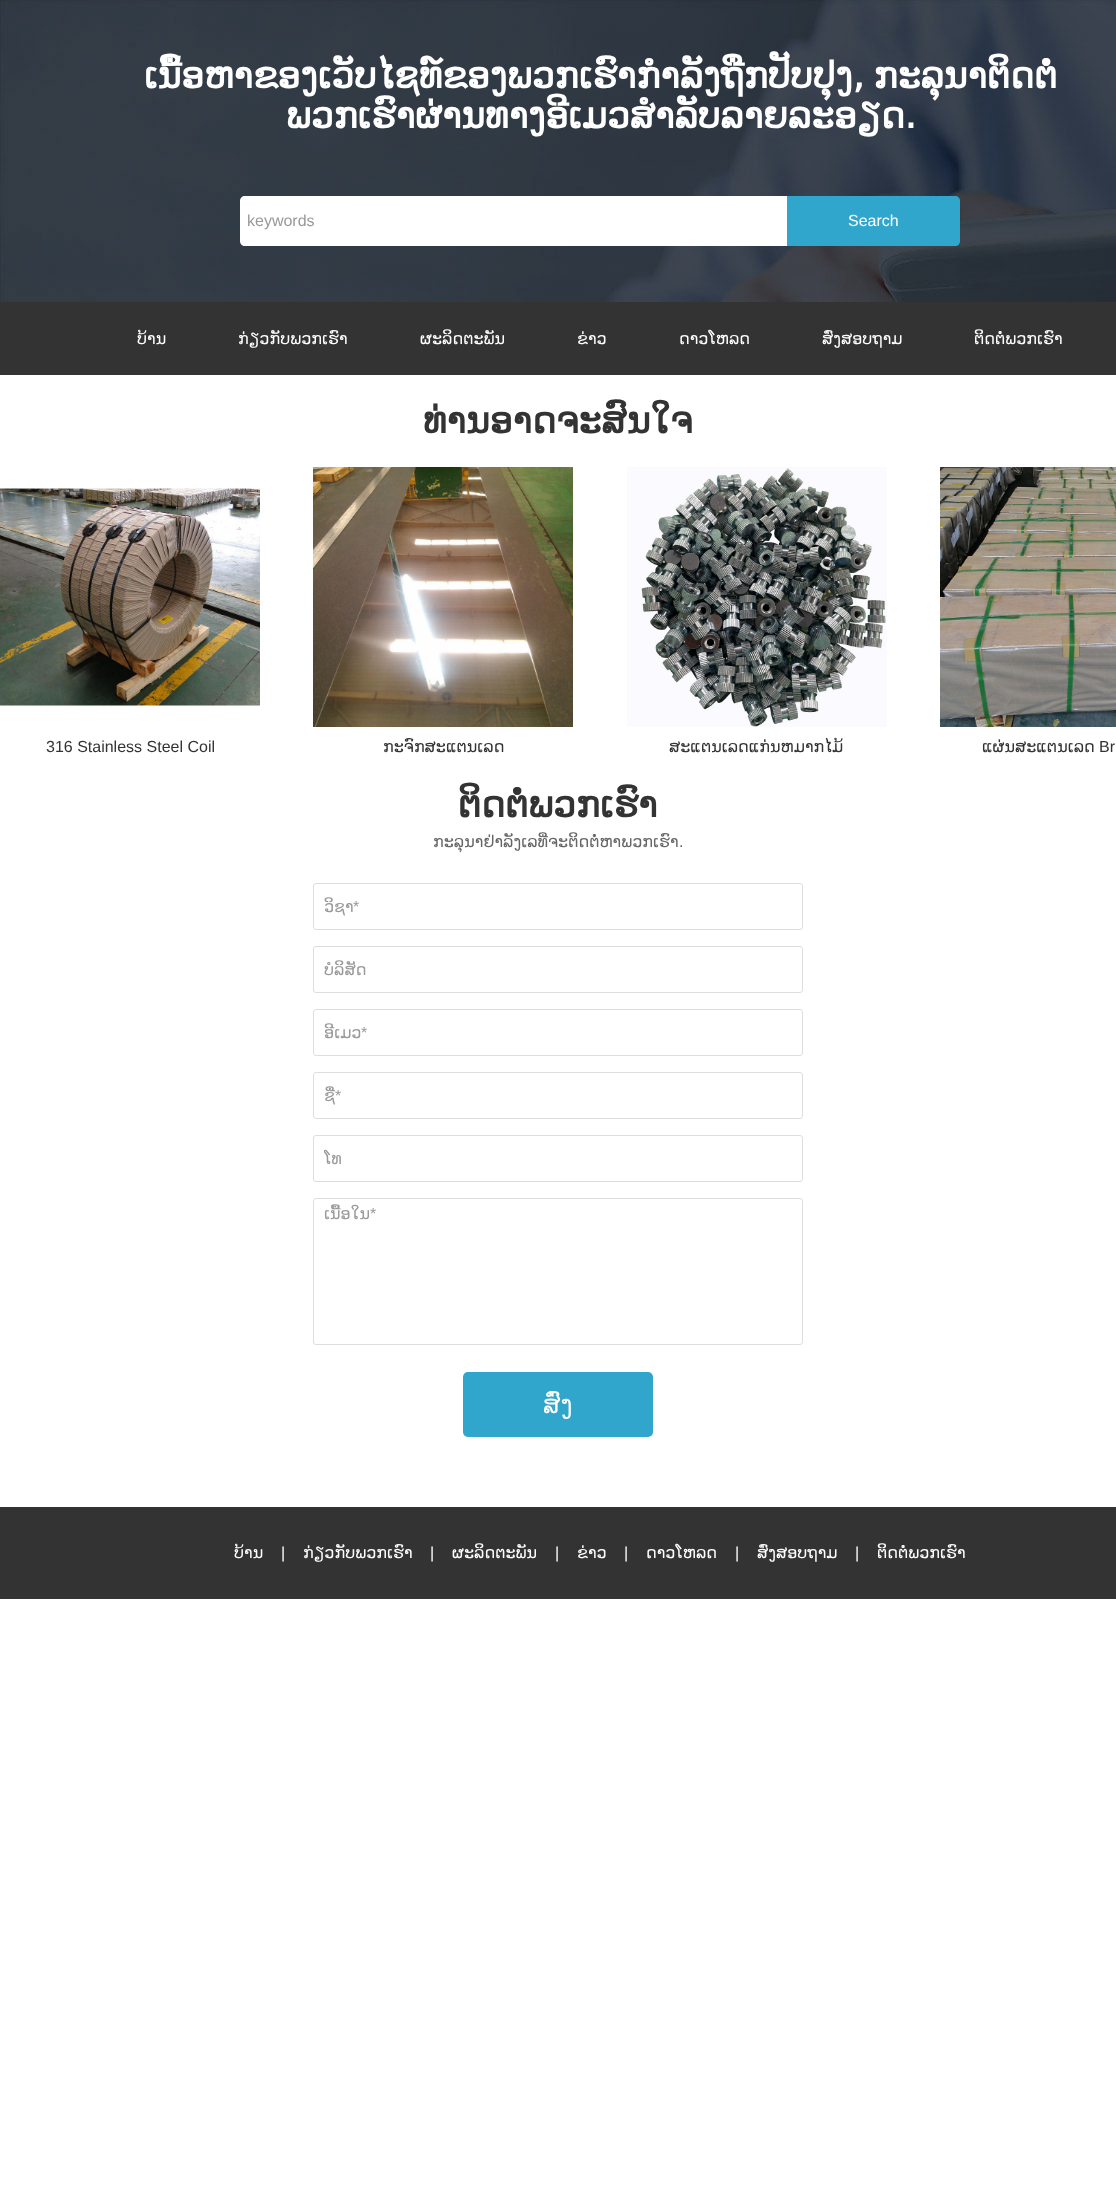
<svg xmlns="http://www.w3.org/2000/svg" width="1116" height="2210" viewBox="0 0 1116 2210">
  <style>
    .t1 { font: bold 36px DejaVu Sans; fill: #fff; }
    .t2 { font: 16px Liberation Sans; fill: #999; }
    .t3 { font: 16px Liberation Sans; fill: #fff; }
    .t4 { font: 16px DejaVu Sans; fill: #fff; }
    .t5 { font: bold 36px DejaVu Sans; fill: #333; }
    .t6 { font: 16px Liberation Sans; fill: #333; }
    .t7 { font: 16px DejaVu Sans; fill: #333; }
    .t8 { font: 16px DejaVu Sans; fill: #666; }
    .t9 { font: 16px Liberation Sans; fill: #666; }
    .t10 { font: 16px DejaVu Sans; fill: #999; }
    .t11 { font: 25px DejaVu Sans; fill: #fff; }
  </style>
  <defs>
    <clipPath id="clip1"><rect x="324" y="897" width="468" height="19"/></clipPath>
    <clipPath id="clip2"><rect x="324" y="960" width="468" height="19"/></clipPath>
    <clipPath id="clip3"><rect x="324" y="1023" width="468" height="19"/></clipPath>
    <clipPath id="clip4"><rect x="324" y="1086" width="468" height="19"/></clipPath>
    <clipPath id="clip5"><rect x="324" y="1149" width="468" height="19"/></clipPath>
  </defs>
  <rect width="100%" height="100%" fill="#fff"/>
  <image x="0" y="0" width="1116" height="302" href="images/1.png"/>
  <text x="144" y="88" word-spacing="-2" class="t1">ເນື້ອຫາຂອງເວັບໄຊທ໌ຂອງພວກເຮົາກໍາລັງຖືກປັບປຸງ, ກະລຸນາຕິດຕໍ່</text>
  <text x="286" y="128" class="t1">ພວກເຮົາຜ່ານທາງອີເມວສໍາລັບລາຍລະອຽດ.</text>
  <path d="M245 196H787V246H245C242 246 240 244 240 241V201C240 198 242 196 245 196Z" fill="#fff"/>
  <text x="247" y="226" class="t2">keywords</text>
  <path d="M787 196H955C958 196 960 198 960 201V241C960 244 958 246 955 246H787Z" fill="#31a6cc"/>
  <text x="848" y="226" class="t3">Search</text>
  <rect x="0" y="302" width="1116" height="73" fill="#333"/>
  <text x="137" y="344" class="t4">ບ້ານ</text>
  <text x="238" y="344" class="t4">ກ່ຽວກັບພວກເຮົາ</text>
  <text x="420" y="344" class="t4">ຜະລິດຕະພັນ</text>
  <text x="577" y="344" class="t4">ຂ່າວ</text>
  <text x="679" y="344" class="t4">ດາວໂຫລດ</text>
  <text x="822" y="344" class="t4">ສົ່ງສອບຖາມ</text>
  <text x="974" y="344" class="t4">ຕິດຕໍ່ພວກເຮົາ</text>
  <text x="423" y="433" class="t5">ທ່ານອາດຈະສົນໃຈ</text>
  <image x="0" y="467" width="260" height="260" href="images/2.png"/>
  <text x="46" y="752" class="t6">316 Stainless Steel Coil</text>
  <image x="313" y="467" width="260" height="260" href="images/3.png"/>
  <text x="383" y="752" class="t7">ກະຈົກສະແຕນເລດ</text>
  <image x="627" y="467" width="260" height="260" href="images/4.png"/>
  <text x="669" y="752" class="t7">ສະແຕນເລດແກ່ນຫມາກໄມ້</text>
  <image x="940" y="467" width="176" height="260" href="images/5.png"/>
  <text x="982" y="752" class="t7">ແຜ່ນສະແຕນເລດ</text>
  <text x="1099" y="752" class="t6">Br</text>
  <text x="458" y="817" class="t5">ຕິດຕໍ່ພວກເຮົາ</text>
  <text x="433" y="847" class="t8">ກະລຸນາຢ່າລັງເລທີ່ຈະຕິດຕໍ່ຫາພວກເຮົາ</text>
  <text x="679" y="847" class="t9">.</text>
  <rect x="313.5" y="883.5" width="489" height="46" rx="2.5" fill="none" stroke="#dedede"/>
  <g clip-path="url(#clip1)">
    <text x="324" y="912" class="t10">ວິຊາ</text>
  </g>
  <text x="353" y="912" class="t2">*</text>
  <rect x="313.5" y="946.5" width="489" height="46" rx="2.5" fill="none" stroke="#dedede"/>
  <g clip-path="url(#clip2)">
    <text x="324" y="975" class="t10">ບໍລິສັດ</text>
  </g>
  <rect x="313.5" y="1009.5" width="489" height="46" rx="2.5" fill="none" stroke="#dedede"/>
  <g clip-path="url(#clip3)">
    <text x="324" y="1038" class="t10">ອີເມວ</text>
  </g>
  <text x="361" y="1038" class="t2">*</text>
  <rect x="313.5" y="1072.5" width="489" height="46" rx="2.5" fill="none" stroke="#dedede"/>
  <g clip-path="url(#clip4)">
    <text x="324" y="1101" class="t10">ຊື່</text>
  </g>
  <text x="335" y="1101" class="t2">*</text>
  <rect x="313.5" y="1135.5" width="489" height="46" rx="2.5" fill="none" stroke="#dedede"/>
  <g clip-path="url(#clip5)">
    <text x="324" y="1164" class="t10">ໂທ</text>
  </g>
  <rect x="313.5" y="1198.5" width="489" height="146" rx="2.5" fill="none" stroke="#dedede"/>
  <text x="324" y="1219" class="t10">ເນື້ອໃນ</text>
  <text x="370" y="1219" class="t2">*</text>
  <rect x="463" y="1372" width="190" height="65" rx="5" fill="#31a6cc"/>
  <text x="543" y="1413" class="t11">ສົ່ງ</text>
  <rect x="0" y="1507" width="1116" height="92" fill="#333"/>
  <text x="234" y="1558" class="t4">ບ້ານ</text>
  <text x="281" y="1558" class="t3">|</text>
  <text x="303" y="1558" class="t4">ກ່ຽວກັບພວກເຮົາ</text>
  <text x="430" y="1558" class="t3">|</text>
  <text x="452" y="1558" class="t4">ຜະລິດຕະພັນ</text>
  <text x="555" y="1558" class="t3">|</text>
  <text x="577" y="1558" class="t4">ຂ່າວ</text>
  <text x="624" y="1558" class="t3">|</text>
  <text x="646" y="1558" class="t4">ດາວໂຫລດ</text>
  <text x="735" y="1558" class="t3">|</text>
  <text x="757" y="1558" class="t4">ສົ່ງສອບຖາມ</text>
  <text x="855" y="1558" class="t3">|</text>
  <text x="877" y="1558" class="t4">ຕິດຕໍ່ພວກເຮົາ</text>
</svg>
